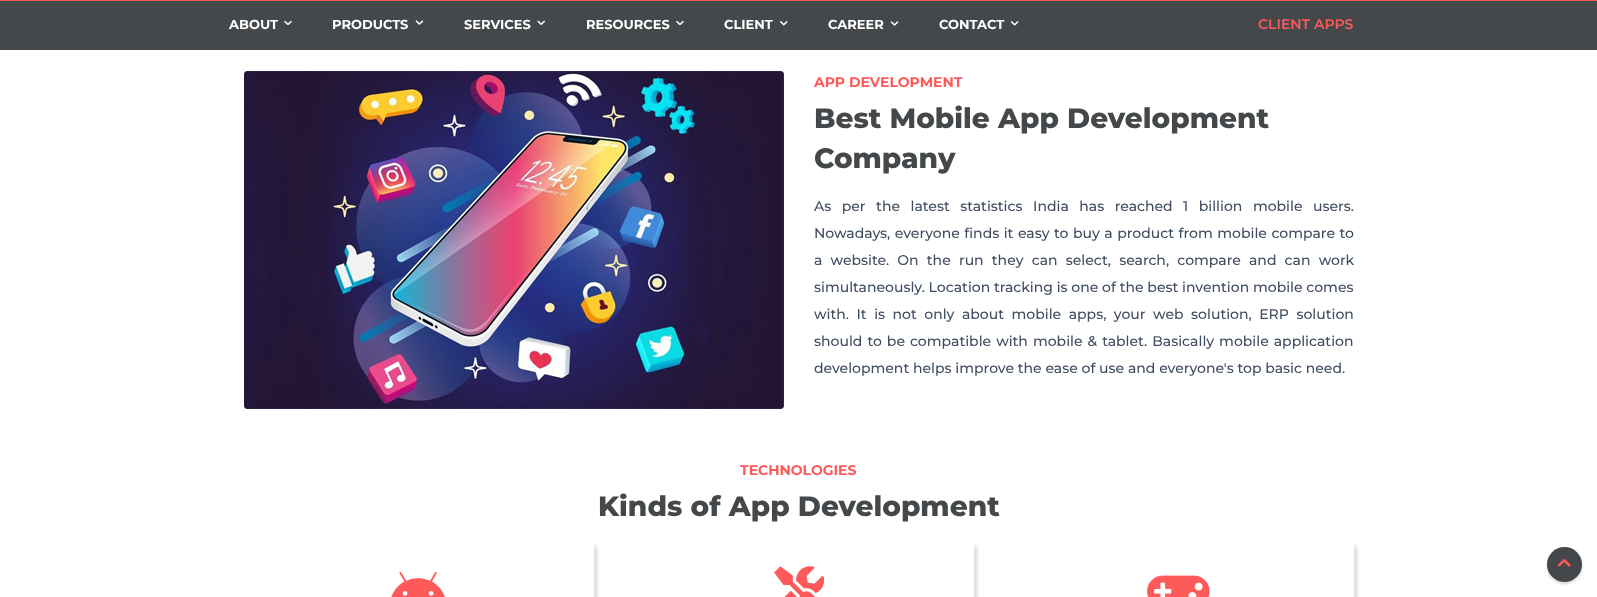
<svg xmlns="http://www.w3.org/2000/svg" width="1597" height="597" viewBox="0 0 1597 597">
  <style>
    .t1 { font: bold 13px Montserrat; fill: #fff; }
    .t2 { font: 600 14px Montserrat; fill: #ff5a5a; }
    .t3 { font: bold 14px Montserrat; fill: #ff5a5a; }
    .t4 { font: 800 28px Montserrat; fill: #45484a; }
    .t5 { font: 500 14px Montserrat; fill: #404d60; }
  </style>
  <defs>
    <clipPath id="clip1"><rect x="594" y="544" width="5" height="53"/></clipPath>
    <clipPath id="clip2"><rect x="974" y="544" width="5" height="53"/></clipPath>
    <clipPath id="clip3"><rect x="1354" y="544" width="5" height="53"/></clipPath>
  </defs>
  <rect width="100%" height="100%" fill="#fff"/>
  <rect x="0" y="1" width="1597" height="49" fill="#45484a"/>
  <rect x="0" y="0" width="1597" height="1" fill="#ff5a5a"/>
  <text x="229" y="29" class="t1">ABOUT</text>
  <image x="284" y="20" width="8" height="6" href="images/1.png"/>
  <text x="332" y="29" class="t1">PRODUCTS</text>
  <image x="415" y="20" width="9" height="5" href="images/2.png"/>
  <text x="464" y="29" class="t1">SERVICES</text>
  <image x="537" y="20" width="8" height="5" href="images/3.png"/>
  <text x="586" y="29" class="t1">RESOURCES</text>
  <image x="676" y="20" width="8" height="6" href="images/4.png"/>
  <text x="724" y="29" class="t1">CLIENT</text>
  <image x="780" y="21" width="8" height="5" href="images/5.png"/>
  <text x="828" y="29" class="t1">CAREER</text>
  <image x="890" y="21" width="9" height="5" href="images/6.png"/>
  <text x="939" y="29" class="t1">CONTACT</text>
  <image x="1011" y="21" width="8" height="5" href="images/7.png"/>
  <text x="1258" y="29" class="t2">CLIENT APPS</text>
  <image x="244" y="71" width="540" height="338" href="images/8.png"/>
  <text x="814" y="87" class="t3">APP DEVELOPMENT</text>
  <text x="814" y="128" class="t4">Best Mobile App Development</text>
  <text x="814" y="168" class="t4">Company</text>
  <text x="814" y="211" word-spacing="6.75" class="t5">As per the latest statistics India has reached 1 billion mobile users.</text>
  <text x="814" y="238" word-spacing="0.75" class="t5">Nowadays, everyone finds it easy to buy a product from mobile compare to</text>
  <text x="814" y="265" word-spacing="4.4" class="t5">a website. On the run they can select, search, compare and can work</text>
  <text x="814" y="292" class="t5">simultaneously. Location tracking is one of the best invention mobile comes</text>
  <text x="814" y="319" word-spacing="3.75" class="t5">with. It is not only about mobile apps, your web solution, ERP solution</text>
  <text x="814" y="346" word-spacing="1.25" class="t5">should to be compatible with mobile &amp; tablet. Basically mobile application</text>
  <text x="814" y="373" class="t5">development helps improve the ease of use and everyone's top basic need.</text>
  <text x="740" y="475" class="t3">TECHNOLOGIES</text>
  <text x="598" y="516" class="t4">Kinds of App Development</text>
  <g clip-path="url(#clip1)">
    <rect x="247" y="546" width="350" height="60" rx="3" fill="#00000026" filter="blur(2px)"/>
  </g>
  <image x="391" y="572" width="54" height="25" href="images/9.png"/>
  <g clip-path="url(#clip2)">
    <rect x="627" y="546" width="350" height="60" rx="3" fill="#00000026" filter="blur(2px)"/>
  </g>
  <image x="774" y="566" width="51" height="31" href="images/10.png"/>
  <g clip-path="url(#clip3)">
    <rect x="1007" y="546" width="350" height="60" rx="3" fill="#00000026" filter="blur(2px)"/>
  </g>
  <image x="1147" y="575" width="63" height="22" href="images/11.png"/>
  <rect x="1547" y="549" width="35" height="35" rx="17.5" fill="#0000002b" filter="blur(1.5px)"/>
  <circle cx="1564.5" cy="564.5" r="17.5" fill="#45484a"/>
  <image x="1557" y="559" width="14" height="8" href="images/12.png"/>
</svg>
